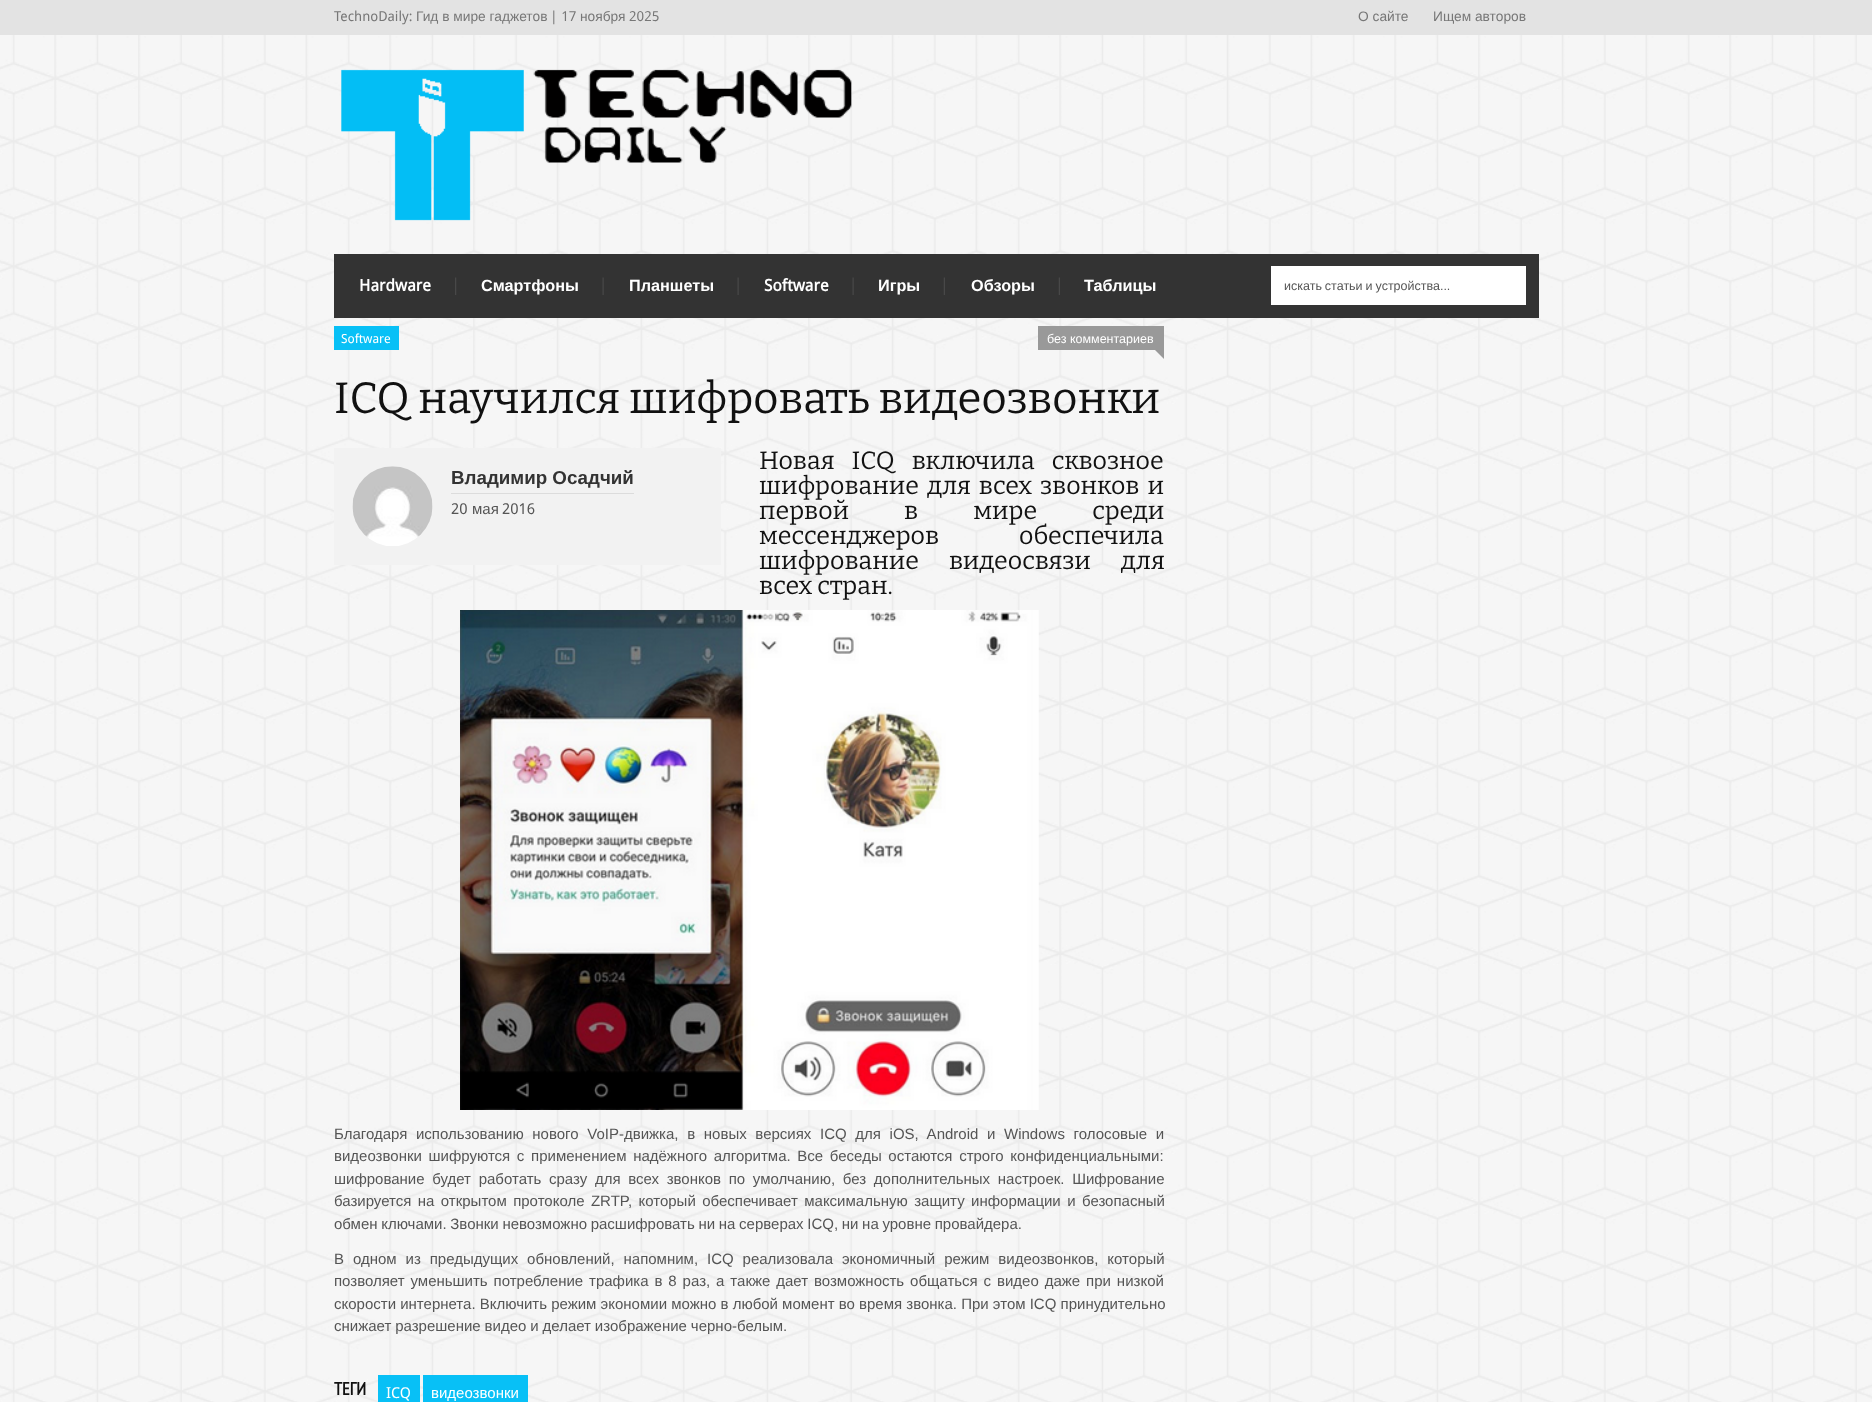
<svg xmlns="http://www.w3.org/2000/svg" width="1872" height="1402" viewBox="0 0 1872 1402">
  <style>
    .t1 { font: 13.75px Droid Sans; fill: #777; }
    .t2 { font: 13.75px Liberation Sans; fill: #777; }
    .t3 { font: bold 16.25px Droid Sans; fill: #fff; }
    .t4 { font: bold 16.25px Liberation Sans; fill: #fff; }
    .t5 { font: 12.5px Liberation Sans; fill: #555; }
    .t6 { font: 12.5px Droid Sans; fill: #fff; }
    .t7 { font: 12.5px Liberation Sans; fill: #fff; }
    .t8 { font: 100 43.75px Bitter; fill: #111; }
    .t9 { font: bold 18.75px Liberation Sans; fill: #333; }
    .t10 { font: 15px Droid Sans; fill: #555; }
    .t11 { font: 15px Liberation Sans; fill: #555; }
    .t12 { font: 100 25px Bitter; fill: #111; }
    .t13 { font: bold 18px PT Sans Narrow; fill: #111; }
    .t14 { font: 15px Droid Sans; fill: #fff; }
    .t15 { font: 15px Liberation Sans; fill: #fff; }
  </style>
  <rect width="100%" height="100%" fill="#fff"/>
  <image x="0" y="35" width="1872" height="1367" href="images/1.png"/>
  <rect x="0" y="0" width="1872" height="35" fill="#e3e3e3"/>
  <text x="334" y="21" class="t1">TechnoDaily:</text>
  <text x="416" y="21" class="t2">Гид в мире гаджетов</text>
  <text x="550" y="21" class="t1">| 17</text>
  <text x="580" y="21" class="t2">ноября</text>
  <text x="629" y="21" class="t1">2025</text>
  <text x="1358" y="21" class="t2">О сайте</text>
  <text x="1433" y="21" class="t2">Ищем авторов</text>
  <image x="341" y="69" width="511" height="152" href="images/2.png"/>
  <rect x="334" y="254" width="1205" height="64" fill="#333"/>
  <image x="455" y="277" width="2" height="18" href="images/3.png"/>
  <text x="359" y="291" class="t3">Hardware</text>
  <image x="602" y="277" width="2" height="18" href="images/4.png"/>
  <text x="481" y="291" class="t4">Смартфоны</text>
  <image x="737" y="277" width="2" height="18" href="images/4.png"/>
  <text x="629" y="291" class="t4">Планшеты</text>
  <image x="852" y="277" width="2" height="18" href="images/4.png"/>
  <text x="764" y="291" class="t3">Software</text>
  <image x="943" y="277" width="2" height="18" href="images/5.png"/>
  <text x="878" y="291" class="t4">Игры</text>
  <image x="1058" y="277" width="2" height="18" href="images/5.png"/>
  <text x="971" y="291" class="t4">Обзоры</text>
  <text x="1084" y="291" class="t4">Таблицы</text>
  <rect x="1271" y="266" width="255" height="39" fill="#fff"/>
  <text x="1284" y="290" word-spacing="-0.5" class="t5">искать статьи и устройства...</text>
  <rect x="334" y="326" width="65" height="24" fill="#08c0f6"/>
  <text x="341" y="343" class="t6">Software</text>
  <rect x="1038" y="326" width="126" height="24" fill="#999"/>
  <text x="1047" y="343" class="t7">без комментариев</text>
  <path d="M1164 350V359L1155 350Z" fill="#999"/>
  <text x="334" y="413" class="t8">ICQ научился шифровать видеозвонки</text>
  <rect x="334" y="448" width="387" height="117" fill="#f2f2f2"/>
  <image x="352" y="466" width="81" height="80" href="images/6.png"/>
  <rect x="451" y="493" width="183" height="1" fill="#dcdcdc"/>
  <text x="451" y="484" class="t9">Владимир Осадчий</text>
  <text x="451" y="514" class="t10">20</text>
  <text x="472" y="514" class="t11">мая</text>
  <text x="502" y="514" class="t10">2016</text>
  <text x="759" y="469" word-spacing="12" class="t12">Новая ICQ включила сквозное</text>
  <text x="759" y="494" word-spacing="3" class="t12">шифрование для всех звонков и</text>
  <text x="759" y="519" word-spacing="50" class="t12">первой в мире среди</text>
  <text x="759" y="544" word-spacing="75" class="t12">мессенджеров обеспечила</text>
  <text x="759" y="569" word-spacing="25" class="t12">шифрование видеосвязи для</text>
  <text x="759" y="594" class="t12">всех стран.</text>
  <image x="460" y="610" width="579" height="500" href="images/7.png"/>
  <text x="334" y="1139" word-spacing="4.5" class="t11">Благодаря использованию нового VoIP-движка, в новых версиях ICQ для iOS, Android и Windows голосовые и</text>
  <text x="334" y="1161" word-spacing="2.5" class="t11">видеозвонки шифруются с применением надёжного алгоритма. Все беседы остаются строго конфиденциальными:</text>
  <text x="334" y="1184" word-spacing="3.5" class="t11">шифрование будет работать сразу для всех звонков по умолчанию, без дополнительных настроек. Шифрование</text>
  <text x="334" y="1206" word-spacing="2.25" class="t11">базируется на открытом протоколе ZRTP, который обеспечивает максимальную защиту информации и безопасный</text>
  <text x="334" y="1229" word-spacing="-0.5" class="t11">обмен ключами. Звонки невозможно расшифровать ни на серверах ICQ, ни на уровне провайдера.</text>
  <text x="334" y="1264" word-spacing="4.75" class="t11">В одном из предыдущих обновлений, напомним, ICQ реализовала экономичный режим видеозвонков, который</text>
  <text x="334" y="1286" word-spacing="1.75" class="t11">позволяет уменьшить потребление трафика в 8 раз, а также дает возможность общаться с видео даже при низкой</text>
  <text x="334" y="1309" class="t11">скорости интернета. Включить режим экономии можно в любой момент во время звонка. При этом ICQ принудительно</text>
  <text x="334" y="1331" word-spacing="-0.25" class="t11">снижает разрешение видео и делает изображение черно-белым.</text>
  <text x="334" y="1395" class="t13">ТЕГИ</text>
  <rect x="378" y="1375" width="42" height="27" fill="#08c0f6"/>
  <text x="386" y="1398" class="t14">ICQ</text>
  <rect x="423" y="1375" width="105" height="27" fill="#08c0f6"/>
  <text x="431" y="1398" class="t15">видеозвонки</text>
</svg>
